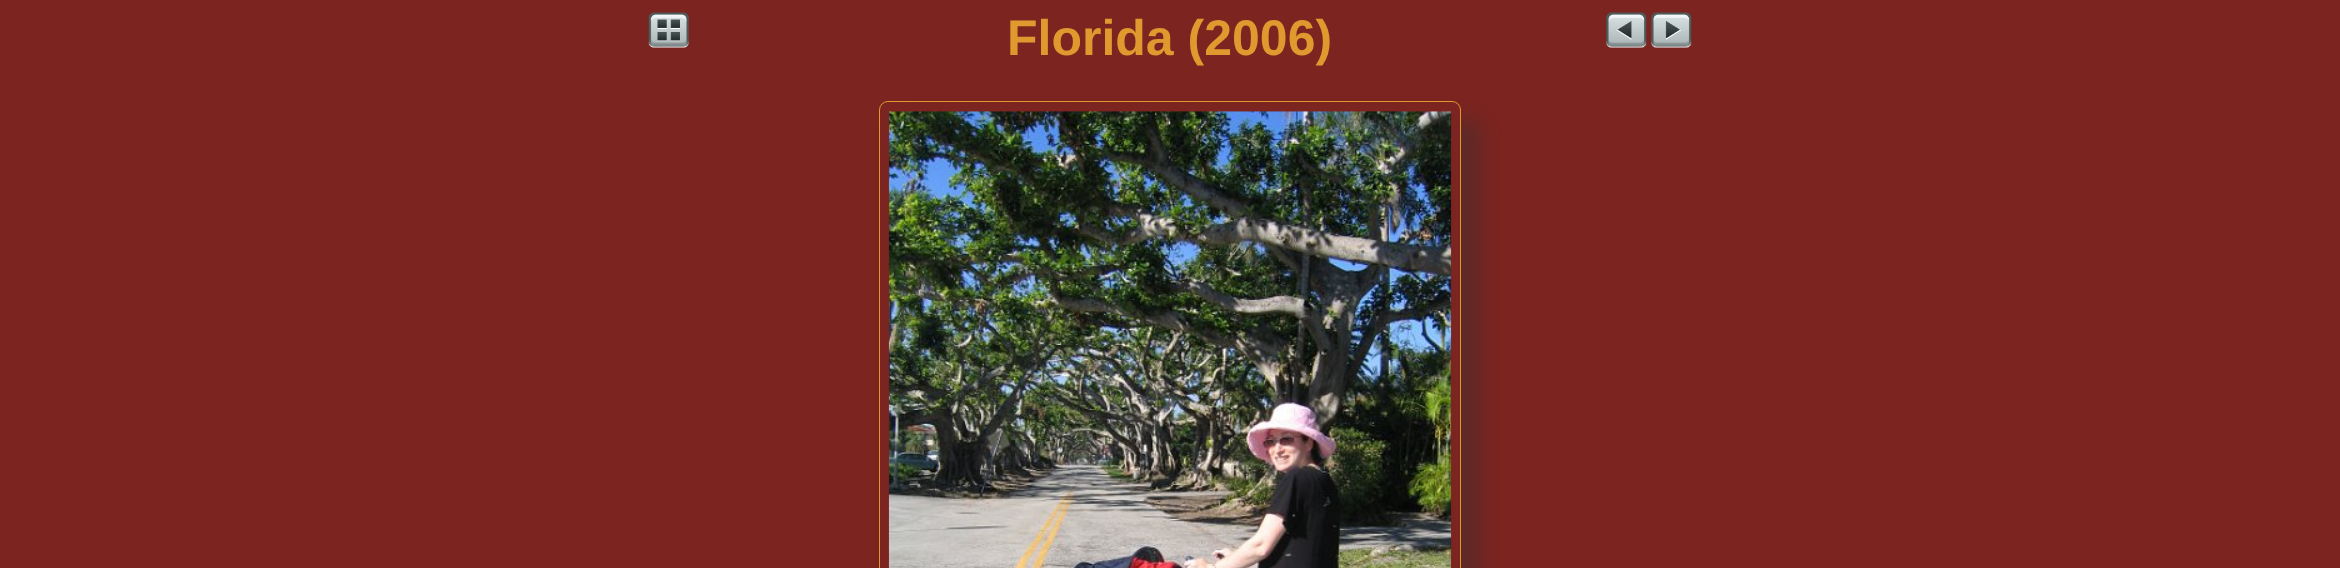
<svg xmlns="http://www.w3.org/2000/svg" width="2340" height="568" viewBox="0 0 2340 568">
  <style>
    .t1 { font: bold 50px Liberation Sans; fill: #df992f; }
  </style>
  <defs>
    <clipPath id="clip1"><path d="M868 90H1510V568H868ZM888 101H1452C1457 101 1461 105 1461 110V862C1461 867 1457 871 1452 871H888C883 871 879 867 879 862V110C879 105 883 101 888 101Z" clip-rule="evenodd"/></clipPath>
  </defs>
  <rect width="100%" height="100%" fill="#7b2420"/>
  <image x="648" y="12" width="41" height="36" href="images/1.png"/>
  <text x="1007" y="55" class="t1">Florida (2006)</text>
  <image x="1606" y="12" width="41" height="36" href="images/2.png"/>
  <image x="1651" y="12" width="41" height="36" href="images/3.png"/>
  <g clip-path="url(#clip1)">
    <rect x="898" y="120" width="582" height="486" rx="9" fill="#33333366" filter="blur(9.5px)"/>
  </g>
  <rect x="879.5" y="101.5" width="581" height="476" rx="8.5" fill="none" stroke="#df992f"/>
  <image x="888" y="111" width="564" height="457" href="images/4.png"/>
</svg>
